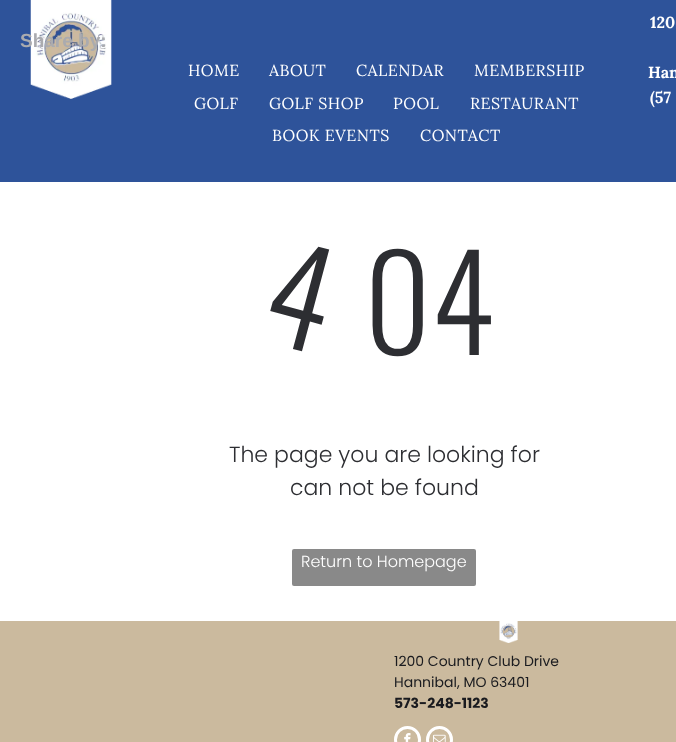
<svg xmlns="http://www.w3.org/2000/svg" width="676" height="742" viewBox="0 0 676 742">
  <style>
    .t1 { font: bold 19px Liberation Sans; fill: #aaabaf; }
    .t2 { font: 16px Lora; letter-spacing: 0.5px; fill: #fff; }
    .t3 { font: bold 16px Lora; fill: #fff; }
    .t4 { font: 300 130px Oswald; fill: #2d2e32; }
    .t5 { font: 300 22px Poppins; fill: #2d2e32; }
    .t6 { font: 300 16px Poppins; fill: #fff; }
    .t7 { font: 14px Poppins; fill: #1a1b1f; }
    .t8 { font: bold 14px Poppins; fill: #1a1b1f; }
  </style>
  <rect width="100%" height="100%" fill="#fff"/>
  <rect x="0" y="0" width="676" height="182" fill="#2e539a"/>
  <image x="30" y="0" width="82" height="99" href="images/1.png"/>
  <text x="20" y="47" class="t1">Share by:</text>
  <text x="188" y="76" class="t2">HOME</text>
  <text x="269" y="76" class="t2">ABOUT</text>
  <text x="356" y="76" class="t2">CALENDAR</text>
  <text x="474" y="76" class="t2">MEMBERSHIP</text>
  <text x="194" y="109" class="t2">GOLF</text>
  <text x="269" y="109" class="t2">GOLF SHOP</text>
  <text x="393" y="109" class="t2">POOL</text>
  <text x="470" y="109" class="t2">RESTAURANT</text>
  <text x="272" y="141" class="t2">BOOK EVENTS</text>
  <text x="420" y="141" class="t2">CONTACT</text>
  <text x="650" y="28" class="t3">120</text>
  <text x="648" y="78" class="t3">Han</text>
  <text x="650" y="103" class="t3">(57</text>
  <text x="256" y="339" transform="rotate(15 256 339)" class="t4">4</text>
  <text x="364" y="355" class="t4">04</text>
  <text x="229" y="462" class="t5">The page you are looking for</text>
  <text x="290" y="495" class="t5">can not be found</text>
  <rect x="292" y="549" width="184" height="37" rx="2" fill="#898989"/>
  <text x="301" y="567" class="t6">Return to Homepage</text>
  <rect x="0" y="621" width="676" height="121" fill="#cbba9e"/>
  <image x="499" y="621" width="19" height="22" href="images/2.png"/>
  <text x="394" y="666" class="t7">1200 Country Club Drive</text>
  <text x="394" y="687" class="t7">Hannibal, MO 63401</text>
  <text x="394" y="708" class="t8">573-248-1123</text>
  <circle cx="407.5" cy="739.5" r="12" fill="none" stroke="#fff" stroke-width="3"/>
  <image x="404" y="733" width="7" height="9" href="images/3.png"/>
  <circle cx="439.5" cy="739.5" r="12" fill="none" stroke="#fff" stroke-width="3"/>
  <image x="433" y="734" width="13" height="8" href="images/4.png"/>
</svg>
